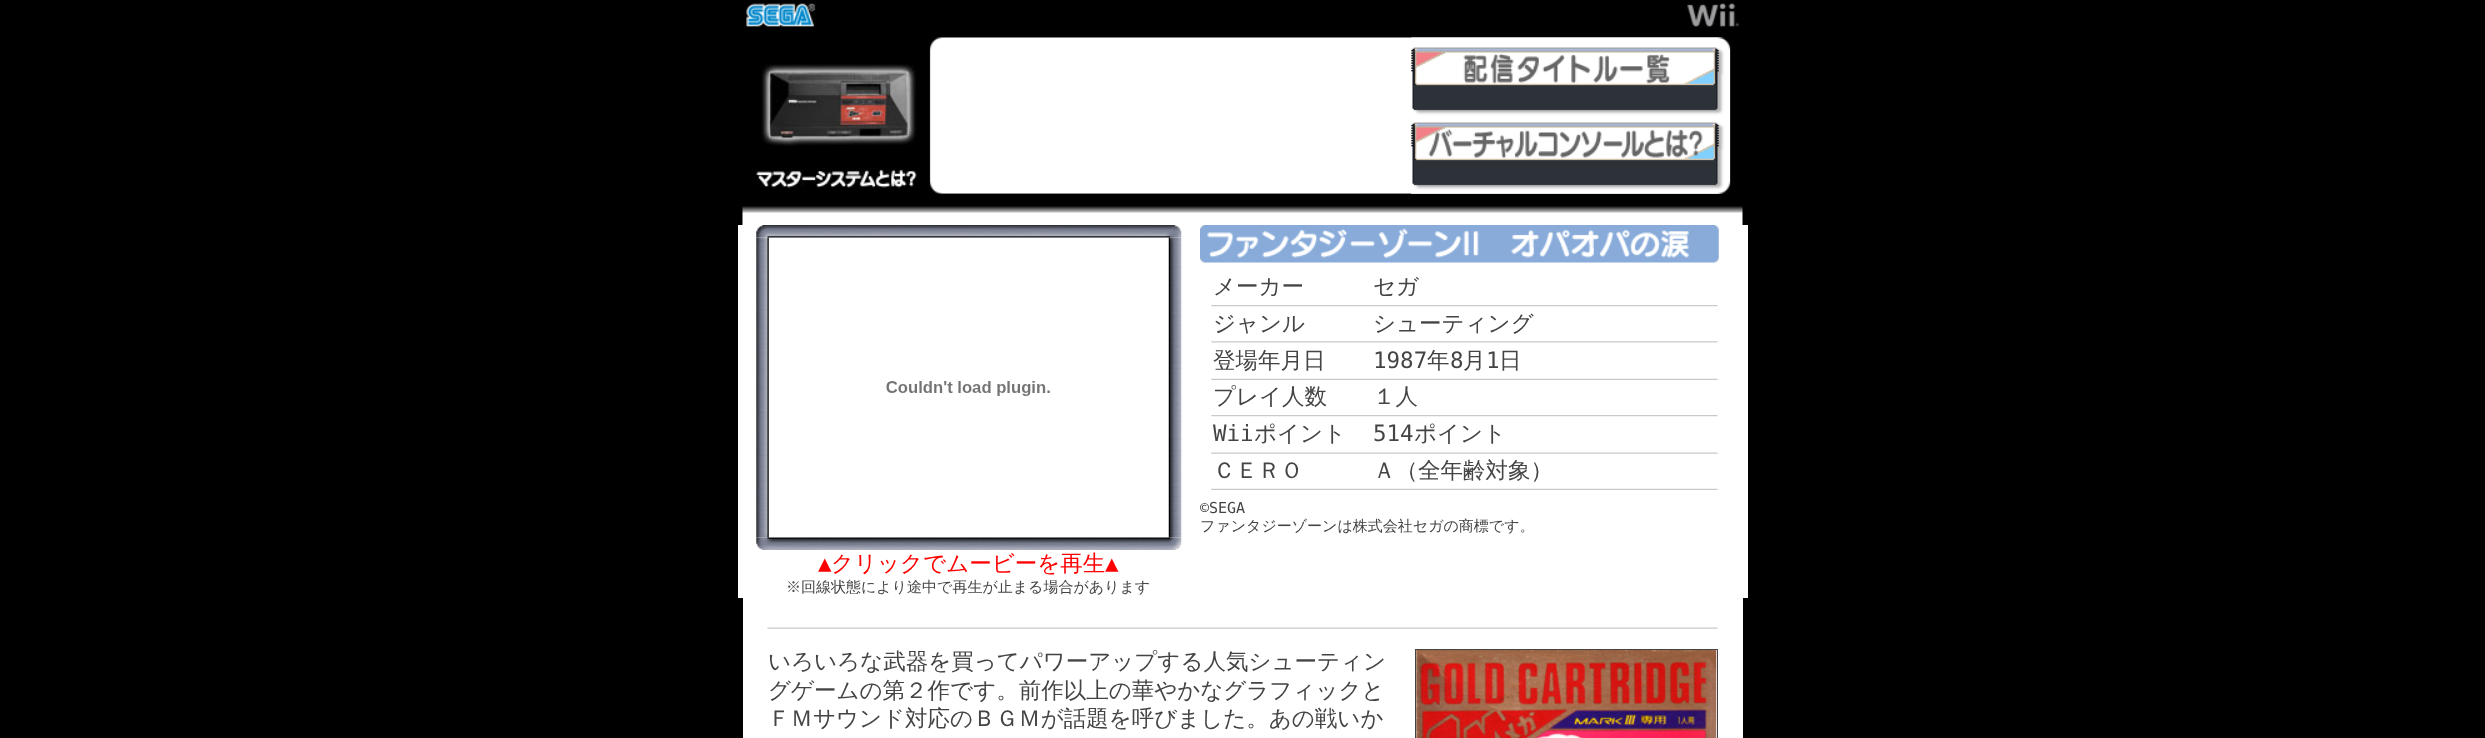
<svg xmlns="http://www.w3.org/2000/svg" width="2485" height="738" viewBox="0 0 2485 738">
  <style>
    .t1 { font: 500 22.5px WenQuanYi Zen Hei; fill: #444; }
    .t2 { font: 22.5px DejaVu Sans Mono; fill: #444; }
    .t3 { font: 15px DejaVu Sans Mono; fill: #444; }
    .t4 { font: 500 15px WenQuanYi Zen Hei; fill: #444; }
    .t5 { font: 22.5px DejaVu Sans Mono; fill: #f00; }
    .t6 { font: 500 22.5px WenQuanYi Zen Hei; fill: #f00; }
  </style>
  <rect width="100%" height="100%" fill="#000"/>
  <image x="746" y="3" width="70" height="24" href="images/1.png"/>
  <image x="1687" y="3" width="52" height="24" href="images/2.png"/>
  <image x="929" y="37" width="802" height="157" href="images/3.png"/>
  <image x="755" y="64" width="162" height="124" href="images/4.png"/>
  <image x="1411" y="37" width="319" height="80" href="images/5.png"/>
  <image x="742" y="193" width="1001" height="32" href="images/7.png"/>
  <image x="1411" y="116" width="319" height="78" href="images/6.png"/>
  <rect x="738" y="225" width="1010" height="373" fill="#fff"/>
  <image x="1200" y="225" width="519" height="38" href="images/8.png"/>
  <text x="1213" y="294" class="t1">メーカー</text>
  <text x="1373" y="294" class="t1">セガ</text>
  <image x="1211" y="305" width="507" height="2" href="images/9.png"/>
  <text x="1213" y="331" class="t1">ジャンル</text>
  <text x="1373" y="331" class="t1">シューティング</text>
  <image x="1211" y="341" width="507" height="2" href="images/10.png"/>
  <text x="1213" y="368" class="t1">登場年月日</text>
  <text x="1373" y="368" class="t2">1987</text>
  <text x="1427" y="368" class="t1">年</text>
  <text x="1450" y="368" class="t2">8</text>
  <text x="1463" y="368" class="t1">月</text>
  <text x="1486" y="368" class="t2">1</text>
  <text x="1499" y="368" class="t1">日</text>
  <image x="1211" y="378" width="507" height="2" href="images/11.png"/>
  <text x="1213" y="404" class="t1">プレイ人数</text>
  <text x="1373" y="404" class="t1">１人</text>
  <image x="1211" y="415" width="507" height="2" href="images/9.png"/>
  <text x="1213" y="441" class="t2">Wii</text>
  <text x="1254" y="441" class="t1">ポイント</text>
  <text x="1373" y="441" class="t2">514</text>
  <text x="1414" y="441" class="t1">ポイント</text>
  <image x="1211" y="452" width="507" height="2" href="images/12.png"/>
  <text x="1213" y="478" class="t1">ＣＥＲＯ</text>
  <text x="1373" y="478" class="t1">Ａ（全年齢対象）</text>
  <image x="1211" y="488" width="507" height="2" href="images/11.png"/>
  <text x="1200" y="513" class="t3">©SEGA</text>
  <text x="1200" y="531" class="t4">ファンタジーゾーンは株式会社セガの商標です。</text>
  <image x="756" y="225" width="426" height="13" href="images/13.png"/>
  <image x="756" y="237" width="13" height="301" href="images/14.png"/>
  <image x="886" y="381" width="164" height="15" href="images/15.png"/>
  <image x="1168" y="237" width="14" height="301" href="images/16.png"/>
  <image x="756" y="537" width="426" height="13" href="images/17.png"/>
  <text x="818" y="571" class="t5">▲</text>
  <text x="831" y="571" class="t6">クリックでムービーを再生</text>
  <text x="1105" y="571" class="t5">▲</text>
  <text x="786" y="592" class="t4">※回線状態により途中で再生が止まる場合があります</text>
  <rect x="743" y="598" width="1000" height="140" fill="#fff"/>
  <image x="767" y="627" width="951" height="2" href="images/18.png"/>
  <text x="768" y="669" class="t1">いろいろな武器を買ってパワーアップする人気シューティン</text>
  <rect x="1415.5" y="649.5" width="302" height="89" fill="none" stroke="#444"/>
  <image x="1416" y="650" width="301" height="88" href="images/19.png"/>
  <text x="768" y="698" class="t1">グゲームの第２作です。前作以上の華やかなグラフィックと</text>
  <text x="768" y="726" class="t1">ＦＭサウンド対応のＢＧＭが話題を呼びました。あの戦いか</text>
</svg>
